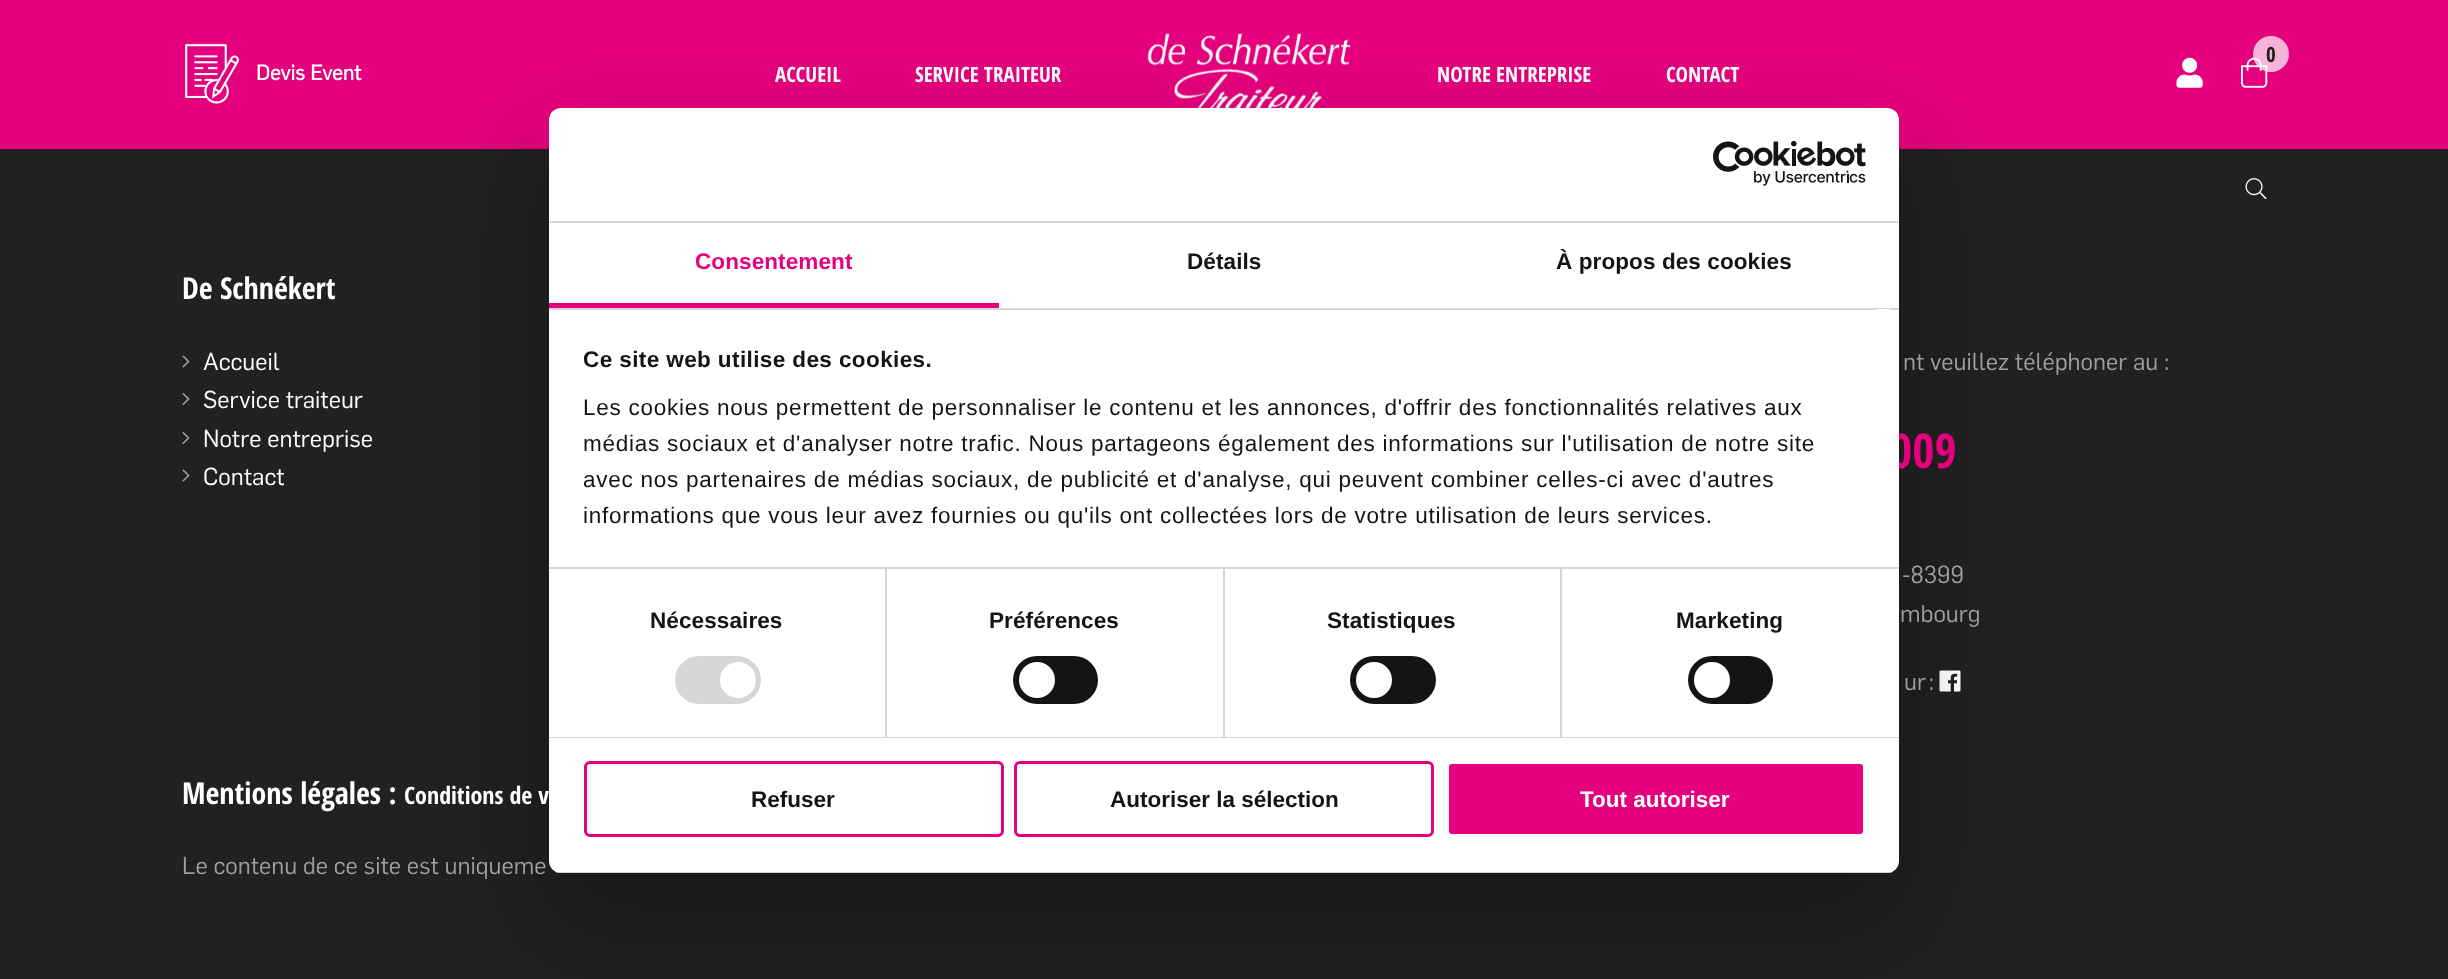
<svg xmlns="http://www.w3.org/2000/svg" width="2448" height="979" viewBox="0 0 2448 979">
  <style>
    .t1 { font: bold 21px Open Sans Condensed; fill: #212121; }
    .t2 { font: bold 21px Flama; fill: #fff; }
    .t3 { font: bold 21px Open Sans Condensed; fill: #fff; }
    .t4 { font: bold 48px Open Sans Condensed; fill: #e5007d; }
    .t5 { font: bold 22.5px Liberation Sans; letter-spacing: 0.1px; fill: #e5007d; }
    .t6 { font: bold 22.5px Liberation Sans; letter-spacing: 0.1px; fill: #141414; }
    .t7 { font: bold 22.5px Liberation Sans; letter-spacing: 0.4px; fill: #141414; }
    .t8 { font: 22.5px Liberation Sans; letter-spacing: 0.75px; fill: #141414; }
    .t9 { font: bold 22.5px Liberation Sans; fill: #141414; }
    .t10 { font: bold 22.5px Liberation Sans; fill: #fff; }
    .t11 { font: bold 30px Open Sans Condensed; fill: #fff; }
    .t12 { font: 24px Flama; fill: #fff; }
    .t13 { font: 24px Flama; fill: #9e9e9e; }
    .t14 { font: bold 24px Open Sans Condensed; fill: #fff; }
  </style>
  <defs>
    <clipPath id="clip1"><rect x="549" y="108" width="1350" height="765" rx="12"/></clipPath>
  </defs>
  <rect width="100%" height="100%" fill="#212121"/>
  <rect x="0" y="0" width="2448" height="149" fill="#e5007d"/>
  <image x="2241" y="57" width="27" height="31" href="images/1.png"/>
  <circle cx="2271" cy="54" r="18" fill="#ffffffb3"/>
  <text x="2266" y="62" class="t1">0</text>
  <image x="2176" y="57" width="27" height="31" href="images/2.png"/>
  <image x="185" y="44" width="54" height="60" href="images/3.png"/>
  <text x="256" y="80" class="t2">Devis Event</text>
  <text x="775" y="82" class="t3">ACCUEIL</text>
  <text x="915" y="82" class="t3">SERVICE TRAITEUR</text>
  <image x="1147" y="33" width="204" height="75" href="images/4.png"/>
  <text x="1437" y="82" class="t3">NOTRE ENTREPRISE</text>
  <text x="1666" y="82" class="t3">CONTACT</text>
  <image x="2245" y="178" width="22" height="22" href="images/5.png"/>
  <image x="1939" y="670" width="22" height="22" href="images/9.png"/>
  <rect x="549" y="156" width="1350" height="765" rx="12" fill="#0000004d" filter="blur(51px)"/>
  <text x="1890" y="468" class="t4">009</text>
  <rect x="549" y="108" width="1350" height="765" rx="12" fill="#fff"/>
  <rect x="549" y="221" width="1350" height="2" fill="#d6d6d6"/>
  <image x="1713" y="141" width="153" height="45" href="images/6.png"/>
  <rect x="549" y="308" width="1350" height="2" fill="#d6d6d6"/>
  <rect x="549" y="303" width="450" height="5" fill="#e5007d"/>
  <text x="695" y="269" class="t5">Consentement</text>
  <text x="1187" y="269" class="t6">Détails</text>
  <text x="1556" y="269" class="t6">À propos des cookies</text>
  <rect x="549" y="567" width="1350" height="2" fill="#d6d6d6"/>
  <rect x="1877" y="309" width="13" height="1" fill="#fff"/>
  <text x="583" y="367" class="t7">Ce site web utilise des cookies.</text>
  <text x="583" y="415" class="t8">Les cookies nous permettent de personnaliser le contenu et les annonces, d'offrir des fonctionnalités relatives aux</text>
  <text x="583" y="451" class="t8">médias sociaux et d'analyser notre trafic. Nous partageons également des informations sur l'utilisation de notre site</text>
  <text x="583" y="487" class="t8">avec nos partenaires de médias sociaux, de publicité et d'analyse, qui peuvent combiner celles-ci avec d'autres</text>
  <text x="583" y="523" class="t8">informations que vous leur avez fournies ou qu'ils ont collectées lors de votre utilisation de leurs services.</text>
  <rect x="549" y="737" width="1350" height="1" fill="#d6d6d6"/>
  <rect x="885" y="569" width="2" height="168" fill="#d6d6d6"/>
  <text x="650" y="628" class="t6">Nécessaires</text>
  <rect x="675" y="656" width="86" height="48" rx="24" fill="#d6d6d6"/>
  <circle cx="738" cy="680" r="18" fill="#fff"/>
  <rect x="1223" y="569" width="2" height="168" fill="#d6d6d6"/>
  <text x="989" y="628" class="t6">Préférences</text>
  <rect x="1013" y="656" width="85" height="48" rx="24" fill="#141414"/>
  <circle cx="1037" cy="680" r="18" fill="#fff"/>
  <rect x="1560" y="569" width="2" height="168" fill="#d6d6d6"/>
  <text x="1327" y="628" class="t6">Statistiques</text>
  <rect x="1350" y="656" width="86" height="48" rx="24" fill="#141414"/>
  <circle cx="1374" cy="680" r="18" fill="#fff"/>
  <text x="1676" y="628" class="t6">Marketing</text>
  <rect x="1688" y="656" width="85" height="48" rx="24" fill="#141414"/>
  <circle cx="1712" cy="680" r="18" fill="#fff"/>
  <g clip-path="url(#clip1)">
    <rect x="549" y="872" width="1350" height="1" fill="#d6d6d6"/>
  </g>
  <rect x="585.5" y="762.5" width="417" height="73" rx="4.5" fill="none" stroke="#e5007d" stroke-width="3"/>
  <text x="751" y="807" class="t9">Refuser</text>
  <rect x="1015.5" y="762.5" width="417" height="73" rx="4.5" fill="none" stroke="#e5007d" stroke-width="3"/>
  <text x="1110" y="807" class="t9">Autoriser la sélection</text>
  <rect x="1447.5" y="762.5" width="417" height="73" rx="4.5" fill="#e5007d" stroke="#fff" stroke-width="3"/>
  <text x="1580" y="807" class="t10">Tout autoriser</text>
  <text x="182" y="299" class="t11">De Schnékert</text>
  <image x="182" y="355" width="8" height="13" href="images/7.png"/>
  <text x="203" y="370" class="t12">Accueil</text>
  <image x="182" y="393" width="8" height="12" href="images/8.png"/>
  <text x="203" y="408" class="t12">Service traiteur</text>
  <image x="182" y="432" width="8" height="12" href="images/8.png"/>
  <text x="203" y="447" class="t12">Notre entreprise</text>
  <image x="182" y="469" width="8" height="13" href="images/7.png"/>
  <text x="203" y="485" class="t12">Contact</text>
  <text x="1903" y="370" class="t13">nt veuillez téléphoner au :</text>
  <text x="1902" y="583" class="t13">-8399</text>
  <text x="1900" y="622" class="t13">mbourg</text>
  <text x="1904" y="690" class="t13">ur :</text>
  <text x="182" y="804" class="t11">Mentions légales :</text>
  <text x="404" y="804" class="t14">Conditions de v</text>
  <text x="182" y="874" class="t13">Le contenu de ce site est uniqueme</text>
</svg>
